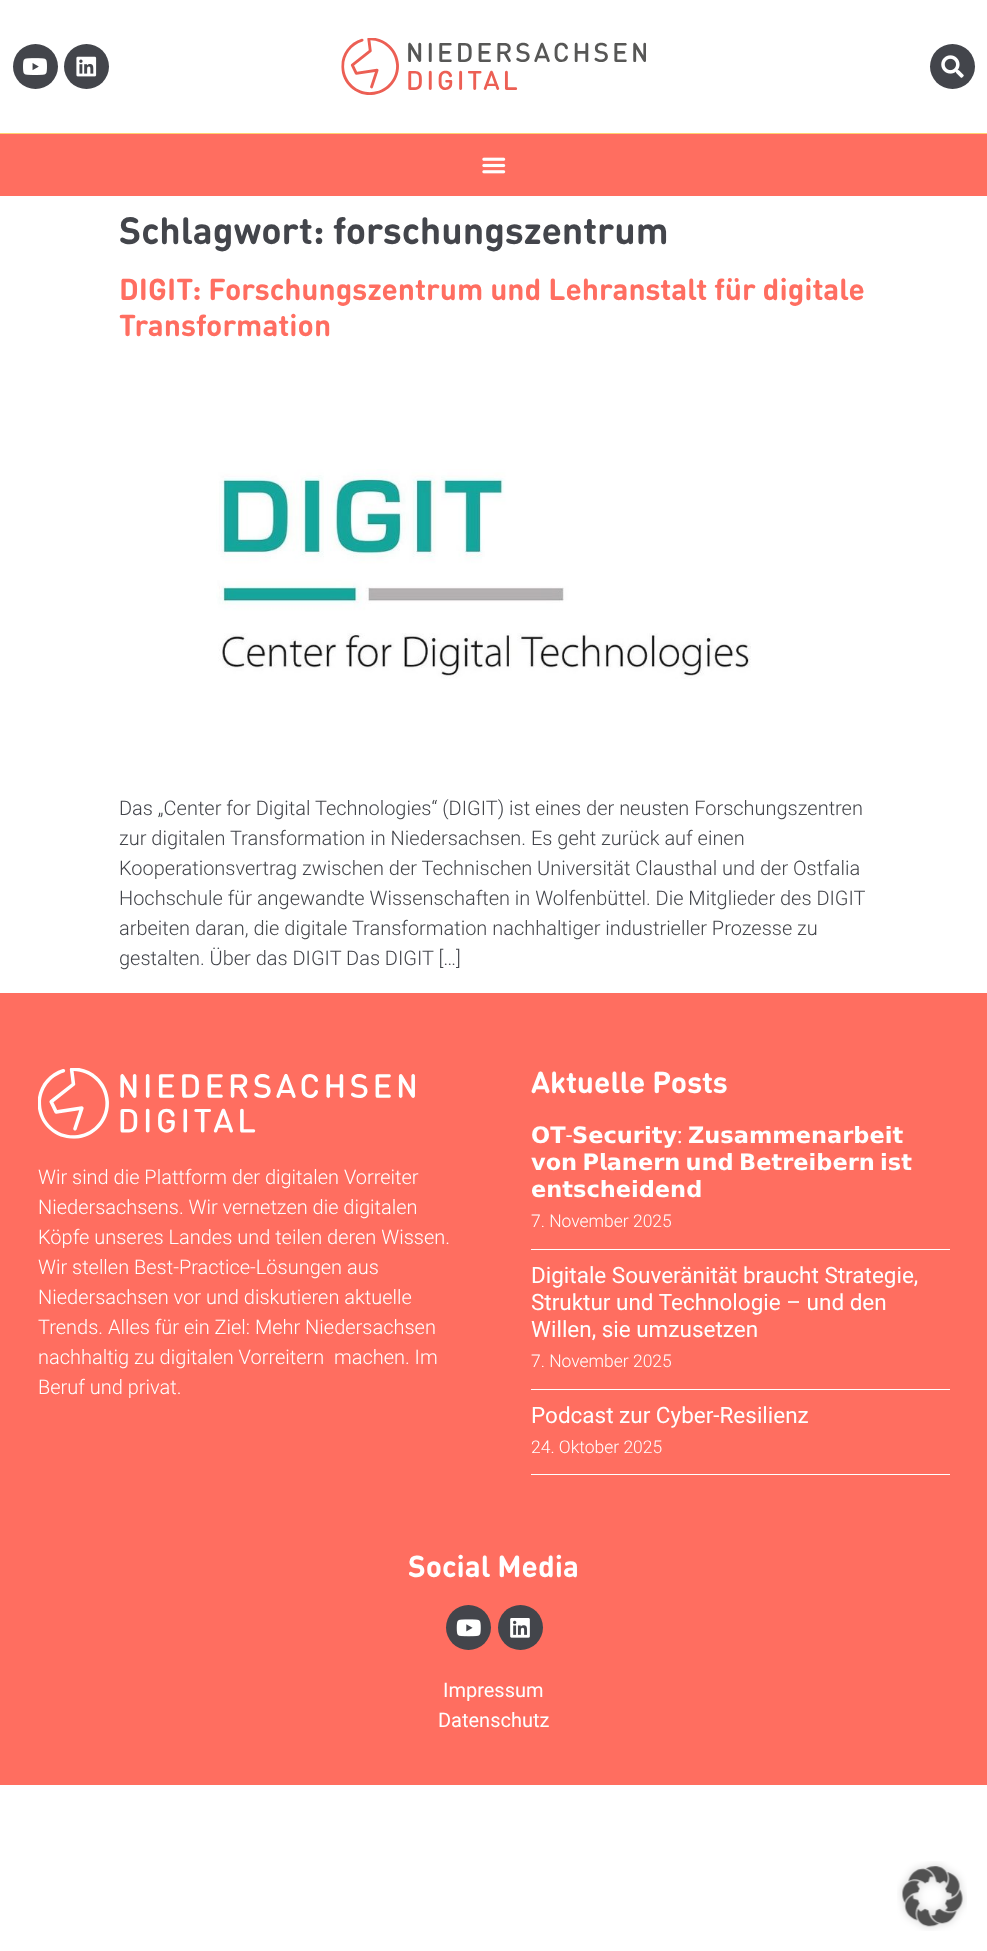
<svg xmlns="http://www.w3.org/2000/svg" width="987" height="1951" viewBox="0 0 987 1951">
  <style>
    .t1 { font: bold 37.5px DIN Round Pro; fill: #43454b; }
    .t2 { font: bold 30px DIN Round Pro; fill: #ff6e61; }
    .t3 { font: 300 20px Roboto; fill: #43454b; }
    .t4 { font: 300 20px Roboto; fill: #fff; }
    .t5 { font: bold 30px DIN Round Pro; fill: #fff; }
    .t6 { font: bold 22.5px DejaVu Sans; fill: #fff; }
    .t7 { font: 22.5px Roboto; fill: #fff; }
    .t8 { font: 300 17.5px Roboto; fill: #fff; }
    .t9 { font: 20px Roboto; fill: #fff; }
  </style>
  <rect width="100%" height="100%" fill="#fff"/>
  <circle cx="35.5" cy="66.5" r="22.5" fill="#43454b"/>
  <image x="23" y="58" width="24" height="17" href="images/1.png"/>
  <circle cx="86.5" cy="66.5" r="22.5" fill="#43454b"/>
  <image x="76" y="56" width="21" height="21" href="images/2.png"/>
  <image x="341" y="38" width="305" height="57" href="images/3.png"/>
  <circle cx="952.5" cy="66.5" r="22.5" fill="#43454b"/>
  <image x="941" y="55" width="23" height="23" href="images/4.png"/>
  <rect x="0" y="134" width="987" height="62" fill="#ff6e60"/>
  <rect x="0" y="133" width="987" height="1" fill="#ffd26e"/>
  <image x="482" y="157" width="24" height="17" href="images/5.png"/>
  <text x="119" y="244" class="t1">Schlagwort: forschungszentrum</text>
  <text x="119" y="300" class="t2">DIGIT: Forschungszentrum und Lehranstalt für digitale</text>
  <text x="119" y="336" class="t2">Transformation</text>
  <image x="216" y="469" width="535" height="210" href="images/6.png"/>
  <text x="119" y="815" class="t3">Das „Center for Digital Technologies“ (DIGIT) ist eines der neusten Forschungszentren</text>
  <text x="119" y="845" class="t3">zur digitalen Transformation in Niedersachsen. Es geht zurück auf einen</text>
  <text x="119" y="875" class="t3">Kooperationsvertrag zwischen der Technischen Universität Clausthal und der Ostfalia</text>
  <text x="119" y="905" class="t3">Hochschule für angewandte Wissenschaften in Wolfenbüttel. Die Mitglieder des DIGIT</text>
  <text x="119" y="935" class="t3">arbeiten daran, die digitale Transformation nachhaltiger industrieller Prozesse zu</text>
  <text x="119" y="965" class="t3">gestalten. Über das DIGIT Das DIGIT […]</text>
  <rect x="0" y="993" width="987" height="792" fill="#ff6e60"/>
  <image x="38" y="1068" width="377" height="71" href="images/7.png"/>
  <text x="38" y="1184" class="t4">Wir sind die Plattform der digitalen Vorreiter</text>
  <text x="38" y="1214" class="t4">Niedersachsens. Wir vernetzen die digitalen</text>
  <text x="38" y="1244" class="t4">Köpfe unseres Landes und teilen deren Wissen.</text>
  <text x="38" y="1274" class="t4">Wir stellen Best-Practice-Lösungen aus</text>
  <text x="38" y="1304" class="t4">Niedersachsen vor und diskutieren aktuelle</text>
  <text x="38" y="1334" class="t4">Trends. Alles für ein Ziel: Mehr Niedersachsen</text>
  <text x="38" y="1364" class="t4" xml:space="preserve">nachhaltig zu digitalen Vorreitern  machen. Im</text>
  <text x="38" y="1394" class="t4">Beruf und privat.</text>
  <text x="531" y="1093" class="t5">Aktuelle Posts</text>
  <rect x="531" y="1249" width="419" height="1" fill="#fff"/>
  <text x="531" y="1143" class="t6">𝗢𝗧</text>
  <text x="566" y="1143" class="t7">-</text>
  <text x="572" y="1143" class="t6">𝗦𝗲𝗰𝘂𝗿𝗶𝘁𝘆</text>
  <text x="677" y="1143" class="t7">:</text>
  <text x="688" y="1143" class="t6">𝗭𝘂𝘀𝗮𝗺𝗺𝗲𝗻𝗮𝗿𝗯𝗲𝗶𝘁</text>
  <text x="531" y="1170" word-spacing="-2.5" class="t6">𝘃𝗼𝗻 𝗣𝗹𝗮𝗻𝗲𝗿𝗻 𝘂𝗻𝗱 𝗕𝗲𝘁𝗿𝗲𝗶𝗯𝗲𝗿𝗻 𝗶𝘀𝘁</text>
  <text x="531" y="1197" class="t6">𝗲𝗻𝘁𝘀𝗰𝗵𝗲𝗶𝗱𝗲𝗻𝗱</text>
  <text x="531" y="1227" class="t8">7. November 2025</text>
  <rect x="531" y="1389" width="419" height="1" fill="#fff"/>
  <text x="531" y="1283" class="t7">Digitale Souveränität braucht Strategie,</text>
  <text x="531" y="1310" class="t7">Struktur und Technologie – und den</text>
  <text x="531" y="1337" class="t7">Willen, sie umzusetzen</text>
  <text x="531" y="1367" class="t8">7. November 2025</text>
  <rect x="531" y="1474" width="419" height="1" fill="#fff"/>
  <text x="531" y="1423" class="t7">Podcast zur Cyber-Resilienz</text>
  <text x="531" y="1453" class="t8">24. Oktober 2025</text>
  <text x="408" y="1577" class="t5">Social Media</text>
  <circle cx="468.5" cy="1627.5" r="22.5" fill="#43454b"/>
  <image x="456" y="1619" width="25" height="18" href="images/8.png"/>
  <circle cx="520.5" cy="1627.5" r="22.5" fill="#43454b"/>
  <image x="510" y="1618" width="20" height="20" href="images/9.png"/>
  <text x="443" y="1697" class="t9">Impressum</text>
  <text x="438" y="1727" class="t9">Datenschutz</text>
  <image x="897" y="1861" width="70" height="70" href="images/10.png"/>
</svg>
